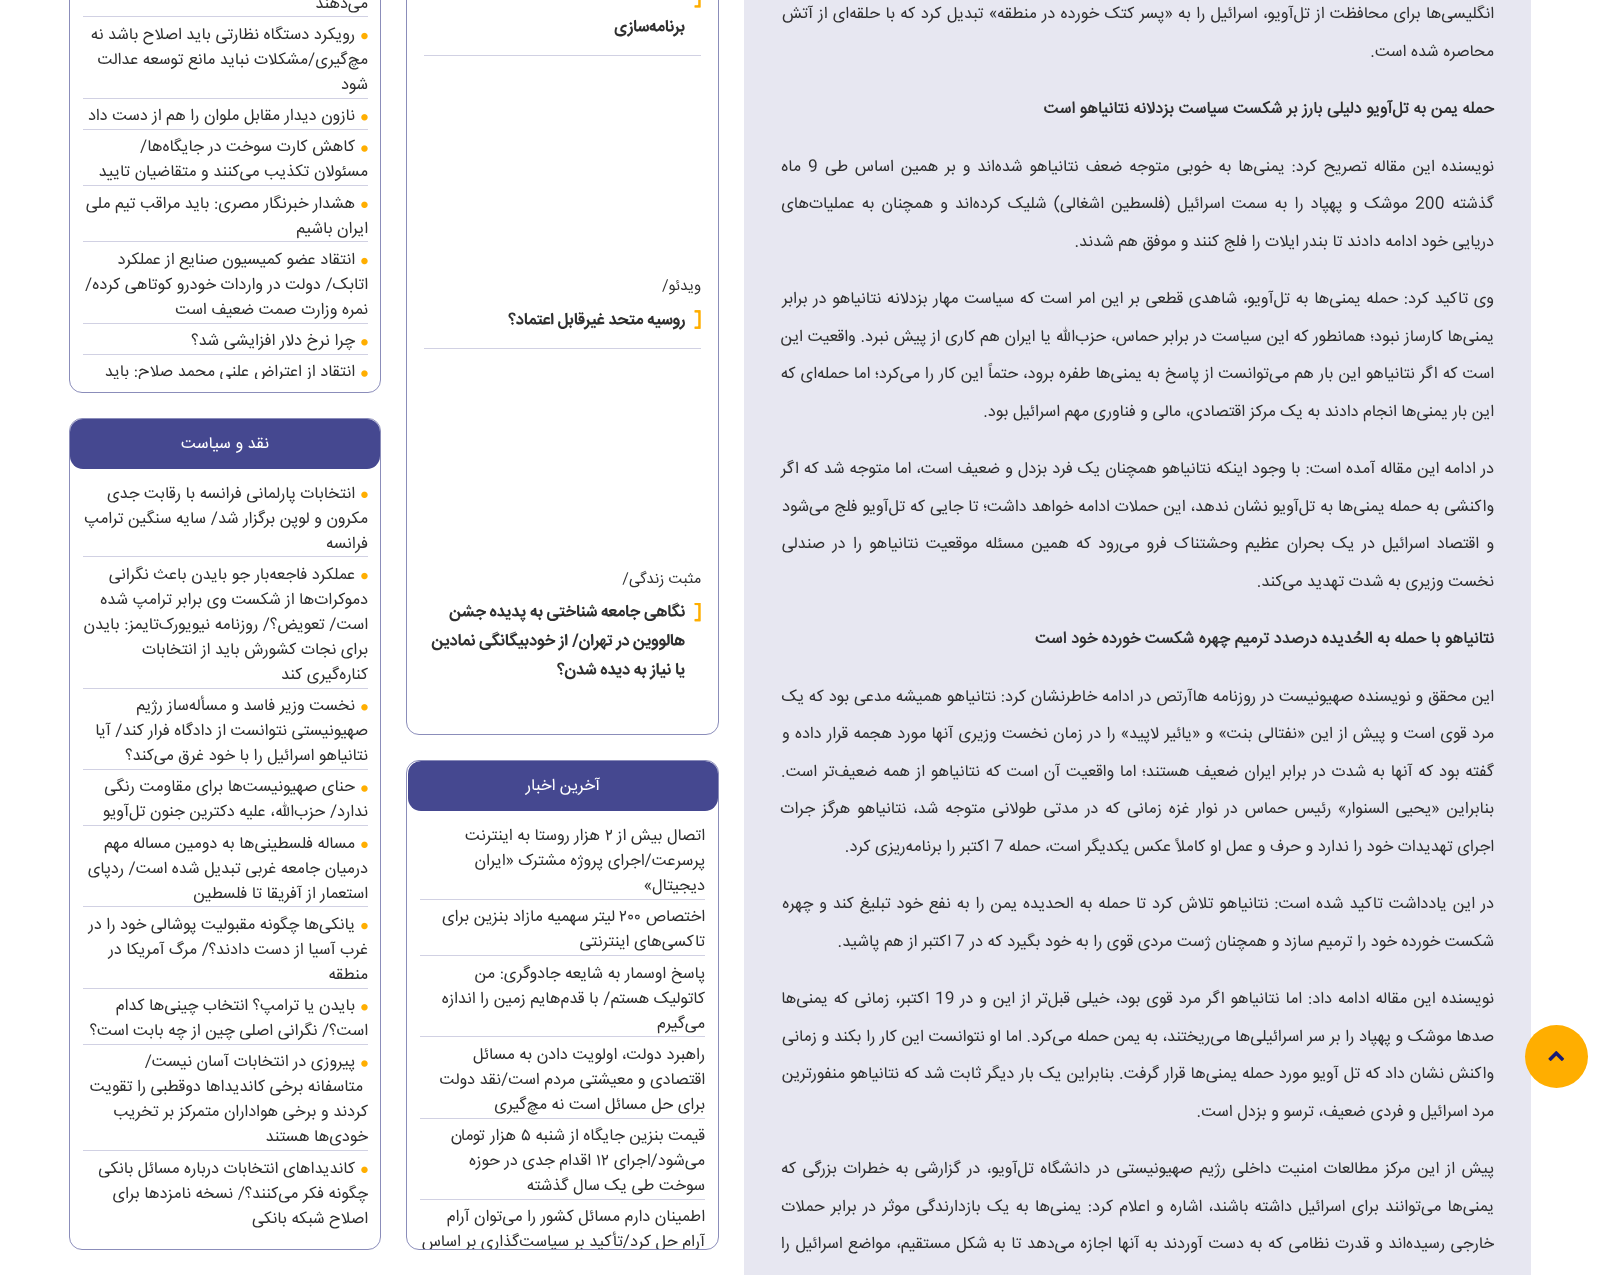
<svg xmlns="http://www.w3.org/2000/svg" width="1600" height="1275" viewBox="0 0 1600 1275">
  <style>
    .t1 { font: 16.25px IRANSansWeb; direction: rtl; fill: #303030; }
    .t2 { font: bold 16.25px IRANSansWeb; direction: rtl; fill: #303030; }
    .t3 { font: 16.25px IRANSansWeb; fill: #303030; }
    .t4 { font: bold 16.25px 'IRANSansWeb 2'; direction: rtl; fill: #303030; }
    .t5 { font: 15px IRANSansWeb; direction: rtl; fill: #303030; }
    .t6 { font: 16.25px IRANSansWeb; direction: rtl; fill: #fff; }
  </style>
  <defs>
    <clipPath id="clip1"><rect x="420" y="1205" width="285" height="44"/></clipPath>
    <clipPath id="clip2"><rect x="83" y="360" width="285" height="19"/></clipPath>
  </defs>
  <rect width="100%" height="100%" fill="#fff"/>
  <rect x="744" y="0" width="787" height="1275" fill="#e7e7f1"/>
  <circle cx="1556.5" cy="1056.5" r="31.5" fill="#ffae00"/>
  <image x="1548" y="1051" width="17" height="10" href="images/1.png"/>
  <text x="1494" y="18" word-spacing="0.75" class="t1">انگلیسی‌ها برای محافظت از تل‌آویو، اسرائیل را به «پسر کتک خورده در منطقه» تبدیل کرد که با حلقه‌ای از آتش</text>
  <text x="1494" y="56" class="t1">محاصره شده است.</text>
  <text x="1494" y="113" class="t2">حمله یمن به تل‌آویو دلیلی بارز بر شکست سیاست بزدلانه نتانیاهو است</text>
  <text x="1494" y="171" word-spacing="2.25" class="t1">نویسنده این مقاله تصریح کرد: یمنی‌ها به خوبی متوجه ضعف نتانیاهو شده‌اند و بر همین اساس طی</text>
  <text x="808" y="171" class="t3">9</text>
  <text x="801" y="171" class="t1">ماه</text>
  <text x="1494" y="208" class="t1">گذشته</text>
  <text x="1415" y="208" class="t3">200</text>
  <text x="1408" y="208" word-spacing="2.5" class="t1">موشک و پهپاد را به سمت اسرائیل (فلسطین اشغالی) شلیک کرده‌اند و همچنان به عملیات‌های</text>
  <text x="1494" y="246" class="t1">دریایی خود ادامه دادند تا بندر ایلات را فلج کنند و موفق هم شدند.</text>
  <text x="1494" y="303" word-spacing="1.1" class="t1">وی تاکید کرد: حمله یمنی‌ها به تل‌آویو، شاهدی قطعی بر این امر است که سیاست مهار بزدلانه نتانیاهو در برابر</text>
  <text x="1494" y="341" word-spacing="0.25" class="t1">یمنی‌ها کارساز نبود؛ همانطور که این سیاست در برابر حماس، حزب‌الله یا ایران هم کاری از پیش نبرد. واقعیت این</text>
  <text x="1494" y="378" word-spacing="0.4" class="t1">است که اگر نتانیاهو این بار هم می‌توانست از پاسخ به یمنی‌ها طفره برود، حتماً این کار را می‌کرد؛ اما حمله‌ای که</text>
  <text x="1494" y="416" class="t1">این بار یمنی‌ها انجام دادند به یک مرکز اقتصادی، مالی و فناوری مهم اسرائیل بود.</text>
  <text x="1494" y="473" word-spacing="0.4" class="t1">در ادامه این مقاله آمده است: با وجود اینکه نتانیاهو همچنان یک فرد بزدل و ضعیف است، اما متوجه شد که اگر</text>
  <text x="1494" y="511" word-spacing="0.4" class="t1">واکنشی به حمله یمنی‌ها به تل‌آویو نشان ندهد، این حملات ادامه خواهد داشت؛ تا جایی که تل‌آویو فلج می‌شود</text>
  <text x="1494" y="548" word-spacing="2.75" class="t1">و اقتصاد اسرائیل در یک بحران عظیم وحشتناک فرو می‌رود که همین مسئله موقعیت نتانیاهو را در صندلی</text>
  <text x="1494" y="586" class="t1">نخست وزیری به شدت تهدید می‌کند.</text>
  <text x="1494" y="643" class="t2">نتانیاهو با حمله به الحُدیده درصدد ترمیم چهره شکست خورده خود است</text>
  <text x="1494" y="701" word-spacing="0.25" class="t1">این محقق و نویسنده صهیونیست در روزنامه هاآرتص در ادامه خاطرنشان کرد: نتانیاهو همیشه مدعی بود که یک</text>
  <text x="1494" y="738" word-spacing="0.75" class="t1">مرد قوی است و پیش از این «نفتالی بنت» و «یائیر لاپید» را در زمان نخست وزیری آنها مورد هجمه قرار داده و</text>
  <text x="1494" y="776" word-spacing="1.25" class="t1">گفته بود که آنها به شدت در برابر ایران ضعیف هستند؛ اما واقعیت آن است که نتانیاهو از همه ضعیف‌تر است.</text>
  <text x="1494" y="813" word-spacing="2.25" class="t1">بنابراین «یحیی السنوار» رئیس حماس در نوار غزه زمانی که در مدتی طولانی متوجه شد، نتانیاهو هرگز جرات</text>
  <text x="1494" y="851" class="t1">اجرای تهدیدات خود را ندارد و حرف و عمل او کاملاً عکس یکدیگر است، حمله</text>
  <text x="994" y="851" class="t3">7</text>
  <text x="989" y="851" class="t1">اکتبر را برنامه‌ریزی کرد.</text>
  <text x="1494" y="908" word-spacing="1.3" class="t1">در این یادداشت تاکید شده است: نتانیاهو تلاش کرد تا حمله به الحدیده یمن را به نفع خود تبلیغ کند و چهره</text>
  <text x="1494" y="946" class="t1">شکست خورده خود را ترمیم سازد و همچنان ژست مردی قوی را به خود بگیرد که در</text>
  <text x="955" y="946" class="t3">7</text>
  <text x="951" y="946" class="t1">اکتبر از هم پاشید.</text>
  <text x="1494" y="1003" word-spacing="1.4" class="t1">نویسنده این مقاله ادامه داد: اما نتانیاهو اگر مرد قوی بود، خیلی قبل‌تر از این و در</text>
  <text x="935" y="1003" class="t3">19</text>
  <text x="929" y="1003" word-spacing="1.4" class="t1">اکتبر، زمانی که یمنی‌ها</text>
  <text x="1494" y="1041" word-spacing="0.1" class="t1">صدها موشک و پهپاد را بر سر اسرائیلی‌ها می‌ریختند، به یمن حمله می‌کرد. اما او نتوانست این کار را بکند و زمانی</text>
  <text x="1494" y="1078" word-spacing="0.4" class="t1">واکنش نشان داد که تل آویو مورد حمله یمنی‌ها قرار گرفت. بنابراین یک بار دیگر ثابت شد که نتانیاهو منفورترین</text>
  <text x="1494" y="1116" class="t1">مرد اسرائیل و فردی ضعیف، ترسو و بزدل است.</text>
  <text x="1494" y="1173" word-spacing="1.9" class="t1">پیش از این مرکز مطالعات امنیت داخلی رژیم صهیونیستی در دانشگاه تل‌آویو، در گزارشی به خطرات بزرگی که</text>
  <text x="1494" y="1211" word-spacing="1.75" class="t1">یمنی‌ها می‌توانند برای اسرائیل داشته باشند، اشاره و اعلام کرد: یمنی‌ها به یک بازدارندگی موثر در برابر حملات</text>
  <text x="1494" y="1248" word-spacing="1" class="t1">خارجی رسیده‌اند و قدرت نظامی که به دست آوردند به آنها اجازه می‌دهد تا به شکل مستقیم، مواضع اسرائیل را</text>
  <rect x="406.5" y="-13.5" width="312" height="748" rx="12.5" fill="none" stroke="#8b8dba"/>
  <rect x="424" y="55" width="277" height="1" fill="#d1d1e3"/>
  <image x="694" y="0" width="7" height="8" href="images/2.png"/>
  <text x="685" y="31" class="t4">برنامه‌سازی</text>
  <rect x="424" y="348" width="277" height="1" fill="#d1d1e3"/>
  <text x="701" y="290" class="t5">ویدئو/</text>
  <image x="694" y="310" width="7" height="19" href="images/3.png"/>
  <text x="685" y="324" class="t4">روسیه متحد غیرقابل اعتماد؟</text>
  <text x="701" y="583" class="t5">مثبت زندگی/</text>
  <image x="694" y="603" width="7" height="19" href="images/4.png"/>
  <text x="685" y="616" class="t4">نگاهی جامعه شناختی به پدیده جشن</text>
  <text x="685" y="645" class="t4">هالووین در تهران/</text>
  <text x="568" y="645" class="t4">از خودبیگانگی نمادین</text>
  <text x="685" y="674" class="t4">یا نیاز به دیده شدن؟</text>
  <rect x="406.5" y="760.5" width="312" height="489" rx="12.5" fill="none" stroke="#8b8dba"/>
  <rect x="408" y="761" width="310" height="50" rx="13" fill="#454890"/>
  <text x="600" y="790" class="t6">آخرین اخبار</text>
  <rect x="420" y="899" width="285" height="1" fill="#d1d1e3"/>
  <text x="705" y="840" class="t1">اتصال بیش از</text>
  <text x="605" y="840" class="t3">۲</text>
  <text x="600" y="840" class="t1">هزار روستا به اینترنت</text>
  <text x="705" y="865" class="t1">پرسرعت/اجرای پروژه مشترک «ایران</text>
  <text x="705" y="890" class="t1">دیجیتال»</text>
  <rect x="420" y="955" width="285" height="1" fill="#d1d1e3"/>
  <text x="705" y="921" class="t1">اختصاص</text>
  <text x="619" y="921" class="t3">۲۰۰</text>
  <text x="615" y="921" class="t1">لیتر سهمیه مازاد بنزین برای</text>
  <text x="705" y="946" class="t1">تاکسی‌های اینترنتی</text>
  <rect x="420" y="1036" width="285" height="1" fill="#d1d1e3"/>
  <text x="705" y="978" class="t1">پاسخ اوسمار به شایعه جادوگری: من</text>
  <text x="705" y="1003" class="t1">کاتولیک هستم/ با قدم‌هایم زمین را اندازه</text>
  <text x="705" y="1028" class="t1">می‌گیرم</text>
  <rect x="420" y="1118" width="285" height="1" fill="#d1d1e3"/>
  <text x="705" y="1059" class="t1">راهبرد دولت، اولویت دادن به مسائل</text>
  <text x="705" y="1084" class="t1">اقتصادی و معیشتی مردم است/نقد دولت</text>
  <text x="705" y="1109" class="t1">برای حل مسائل است نه مچ‌گیری</text>
  <rect x="420" y="1199" width="285" height="1" fill="#d1d1e3"/>
  <text x="705" y="1140" class="t1">قیمت بنزین جایگاه از شنبه</text>
  <text x="521" y="1140" class="t3">۵</text>
  <text x="516" y="1140" class="t1">هزار تومان</text>
  <text x="705" y="1165" class="t1">می‌شود/اجرای</text>
  <text x="596" y="1165" class="t3">۱۲</text>
  <text x="591" y="1165" class="t1">اقدام جدی در حوزه</text>
  <text x="705" y="1190" class="t1">سوخت طی یک سال گذشته</text>
  <text x="705" y="1221" class="t1">اطمینان دارم مسائل کشور را می‌توان آرام</text>
  <g clip-path="url(#clip1)">
    <text x="705" y="1246" class="t1">آرام حل کرد/تأکید بر سیاست‌گذاری بر اساس</text>
  </g>
  <rect x="69.5" y="-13.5" width="311" height="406" rx="12.5" fill="none" stroke="#8b8dba"/>
  <rect x="83" y="16" width="285" height="1" fill="#d1d1e3"/>
  <text x="368" y="8" class="t1">می‌دهند</text>
  <rect x="83" y="98" width="285" height="1" fill="#d1d1e3"/>
  <image x="361" y="32" width="7" height="8" href="images/5.png"/>
  <text x="355" y="39" class="t1">رویکرد دستگاه نظارتی باید اصلاح باشد نه</text>
  <text x="368" y="64" class="t1">مچ‌گیری/مشکلات نباید مانع توسعه عدالت</text>
  <text x="368" y="89" class="t1">شود</text>
  <rect x="83" y="129" width="285" height="1" fill="#d1d1e3"/>
  <image x="361" y="114" width="7" height="7" href="images/6.png"/>
  <text x="355" y="120" class="t1">نازون دیدار مقابل ملوان را هم از دست داد</text>
  <rect x="83" y="185" width="285" height="1" fill="#d1d1e3"/>
  <image x="361" y="145" width="7" height="7" href="images/7.png"/>
  <text x="355" y="151" class="t1">کاهش کارت سوخت در جایگاه‌ها/</text>
  <text x="368" y="176" class="t1">مسئولان تکذیب می‌کنند و متقاضیان تایید</text>
  <rect x="83" y="241" width="285" height="1" fill="#d1d1e3"/>
  <image x="361" y="201" width="7" height="7" href="images/8.png"/>
  <text x="355" y="208" class="t1">هشدار خبرنگار مصری: باید مراقب تیم ملی</text>
  <text x="368" y="233" class="t1">ایران باشیم</text>
  <rect x="83" y="323" width="285" height="1" fill="#d1d1e3"/>
  <image x="361" y="257" width="7" height="8" href="images/5.png"/>
  <text x="355" y="264" class="t1">انتقاد عضو کمیسیون صنایع از عملکرد</text>
  <text x="368" y="289" class="t1">اتابک/ دولت در واردات خودرو کوتاهی کرده/</text>
  <text x="368" y="314" class="t1">نمره وزارت صمت ضعیف است</text>
  <rect x="83" y="354" width="285" height="1" fill="#d1d1e3"/>
  <image x="361" y="339" width="7" height="7" href="images/6.png"/>
  <text x="355" y="345" class="t1">چرا نرخ دلار افزایشی شد؟</text>
  <image x="361" y="370" width="7" height="7" href="images/7.png"/>
  <g clip-path="url(#clip2)">
    <text x="355" y="376" class="t1">انتقاد از اعتراض علنی محمد صلاح: باید</text>
  </g>
  <rect x="69.5" y="418.5" width="311" height="831" rx="12.5" fill="none" stroke="#8b8dba"/>
  <rect x="70" y="419" width="310" height="50" rx="13" fill="#454890"/>
  <text x="269" y="448" class="t6">نقد و سیاست</text>
  <rect x="83" y="556" width="285" height="1" fill="#d1d1e3"/>
  <image x="361" y="491" width="7" height="7" href="images/8.png"/>
  <text x="355" y="498" class="t1">انتخابات پارلمانی فرانسه با رقابت جدی</text>
  <text x="368" y="523" class="t1">مکرون و لوپن برگزار شد/ سایه سنگین ترامپ</text>
  <text x="368" y="548" class="t1">فرانسه</text>
  <rect x="83" y="688" width="285" height="1" fill="#d1d1e3"/>
  <image x="361" y="572" width="7" height="8" href="images/5.png"/>
  <text x="355" y="579" class="t1">عملکرد فاجعه‌بار جو بایدن باعث نگرانی</text>
  <text x="368" y="604" class="t1">دموکرات‌ها از شکست وی برابر ترامپ شده</text>
  <text x="368" y="629" class="t1">است/ تعویض؟/ روزنامه نیویورک‌تایمز: بایدن</text>
  <text x="368" y="654" class="t1">برای نجات کشورش باید از انتخابات</text>
  <text x="368" y="679" class="t1">کناره‌گیری کند</text>
  <rect x="83" y="769" width="285" height="1" fill="#d1d1e3"/>
  <image x="361" y="704" width="7" height="7" href="images/6.png"/>
  <text x="355" y="710" class="t1">نخست وزیر فاسد و مسأله‌ساز رژیم</text>
  <text x="368" y="735" class="t1">صهیونیستی نتوانست از دادگاه فرار کند/ آیا</text>
  <text x="368" y="760" class="t1">نتانیاهو اسرائیل را با خود غرق می‌کند؟</text>
  <rect x="83" y="825" width="285" height="1" fill="#d1d1e3"/>
  <image x="361" y="785" width="7" height="7" href="images/7.png"/>
  <text x="355" y="791" class="t1">حنای صهیونیست‌ها برای مقاومت ‌رنگی</text>
  <text x="368" y="816" class="t1">ندارد/ حزب‌الله، علیه دکترین جنون تل‌آویو</text>
  <rect x="83" y="906" width="285" height="1" fill="#d1d1e3"/>
  <image x="361" y="841" width="7" height="7" href="images/8.png"/>
  <text x="355" y="848" class="t1">مساله فلسطینی‌ها به دومین مساله مهم</text>
  <text x="368" y="873" class="t1">درمیان جامعه غربی تبدیل شده است/ ردپای</text>
  <text x="368" y="898" class="t1">استعمار از آفریقا تا فلسطین</text>
  <rect x="83" y="988" width="285" height="1" fill="#d1d1e3"/>
  <image x="361" y="922" width="7" height="8" href="images/5.png"/>
  <text x="355" y="929" class="t1">یانکی‌ها چگونه مقبولیت پوشالی خود را در</text>
  <text x="368" y="954" class="t1">غرب آسیا از دست دادند؟/ مرگ آمریکا در</text>
  <text x="368" y="979" class="t1">منطقه</text>
  <rect x="83" y="1044" width="285" height="1" fill="#d1d1e3"/>
  <image x="361" y="1004" width="7" height="7" href="images/6.png"/>
  <text x="355" y="1010" class="t1">بایدن یا ترامپ؟ انتخاب چینی‌ها کدام</text>
  <text x="368" y="1035" class="t1">است؟/ نگرانی اصلی چین از چه بابت است؟</text>
  <rect x="83" y="1150" width="285" height="1" fill="#d1d1e3"/>
  <image x="361" y="1060" width="7" height="7" href="images/7.png"/>
  <text x="355" y="1066" class="t1">پیروزی در انتخابات آسان نیست/</text>
  <text x="363" y="1091" class="t1">متاسفانه برخی کاندیداها دوقطبی را تقویت</text>
  <text x="368" y="1116" class="t1">کردند و برخی هواداران متمرکز بر تخریب</text>
  <text x="368" y="1141" class="t1">خودی‌ها هستند</text>
  <image x="361" y="1166" width="7" height="7" href="images/8.png"/>
  <text x="355" y="1173" class="t1">کاندیداهای انتخابات درباره مسائل بانکی</text>
  <text x="368" y="1198" class="t1">چگونه فکر می‌کنند؟/ نسخه نامزدها برای</text>
  <text x="368" y="1223" class="t1">اصلاح شبکه بانکی</text>
</svg>
